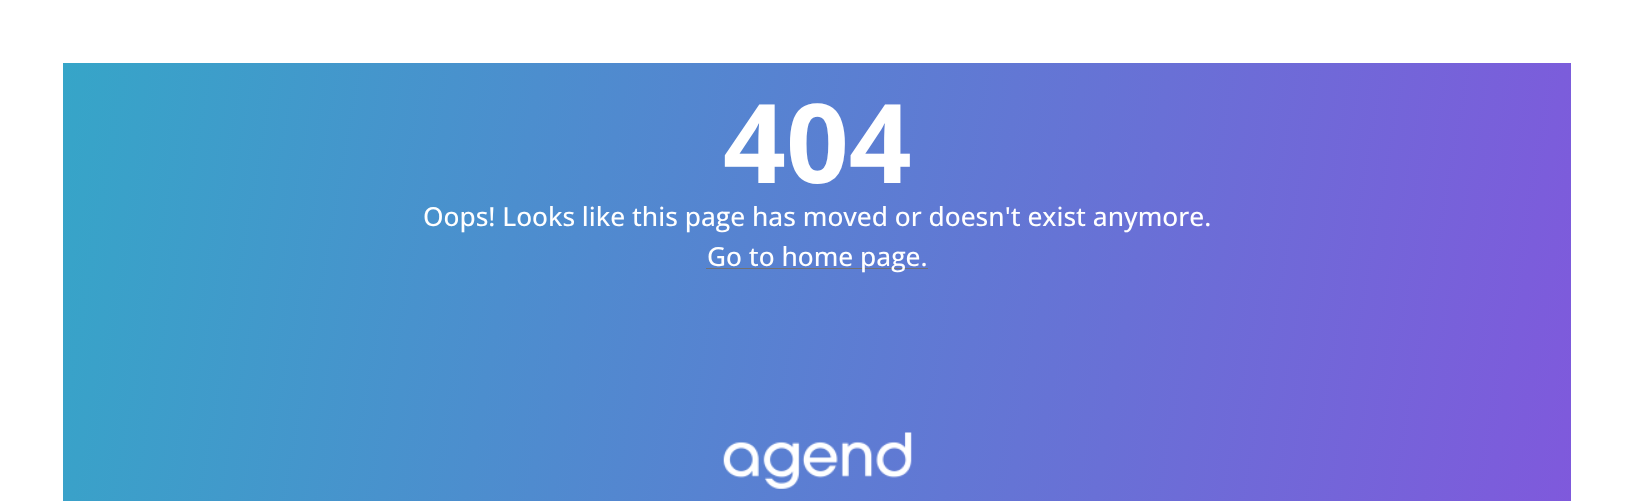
<svg xmlns="http://www.w3.org/2000/svg" width="1633" height="501" viewBox="0 0 1633 501">
  <style>
    .t1 { font: bold 110px Open Sans; fill: #fff; }
    .t2 { font: 500 26.25px Open Sans; fill: #fff; }
  </style>
  <defs>
    <linearGradient id="g1" gradientUnits="userSpaceOnUse" x1="47" y1="152" x2="1587" y2="424"><stop offset="0" stop-color="#36a5c8"/><stop offset="1" stop-color="#7f59dc"/></linearGradient>
  </defs>
  <rect width="100%" height="100%" fill="#fff"/>
  <rect x="63" y="63" width="1508" height="438" fill="url(#g1)"/>
  <text x="723" y="183" class="t1">404</text>
  <text x="423" y="226" class="t2">Oops! Looks like this page has moved or doesn't exist anymore.</text>
  <rect x="706" y="268" width="222" height="1" fill="#727272"/>
  <text x="707" y="266" class="t2">Go to home page.</text>
  <image x="723" y="432" width="189" height="57" href="images/1.png"/>
</svg>
